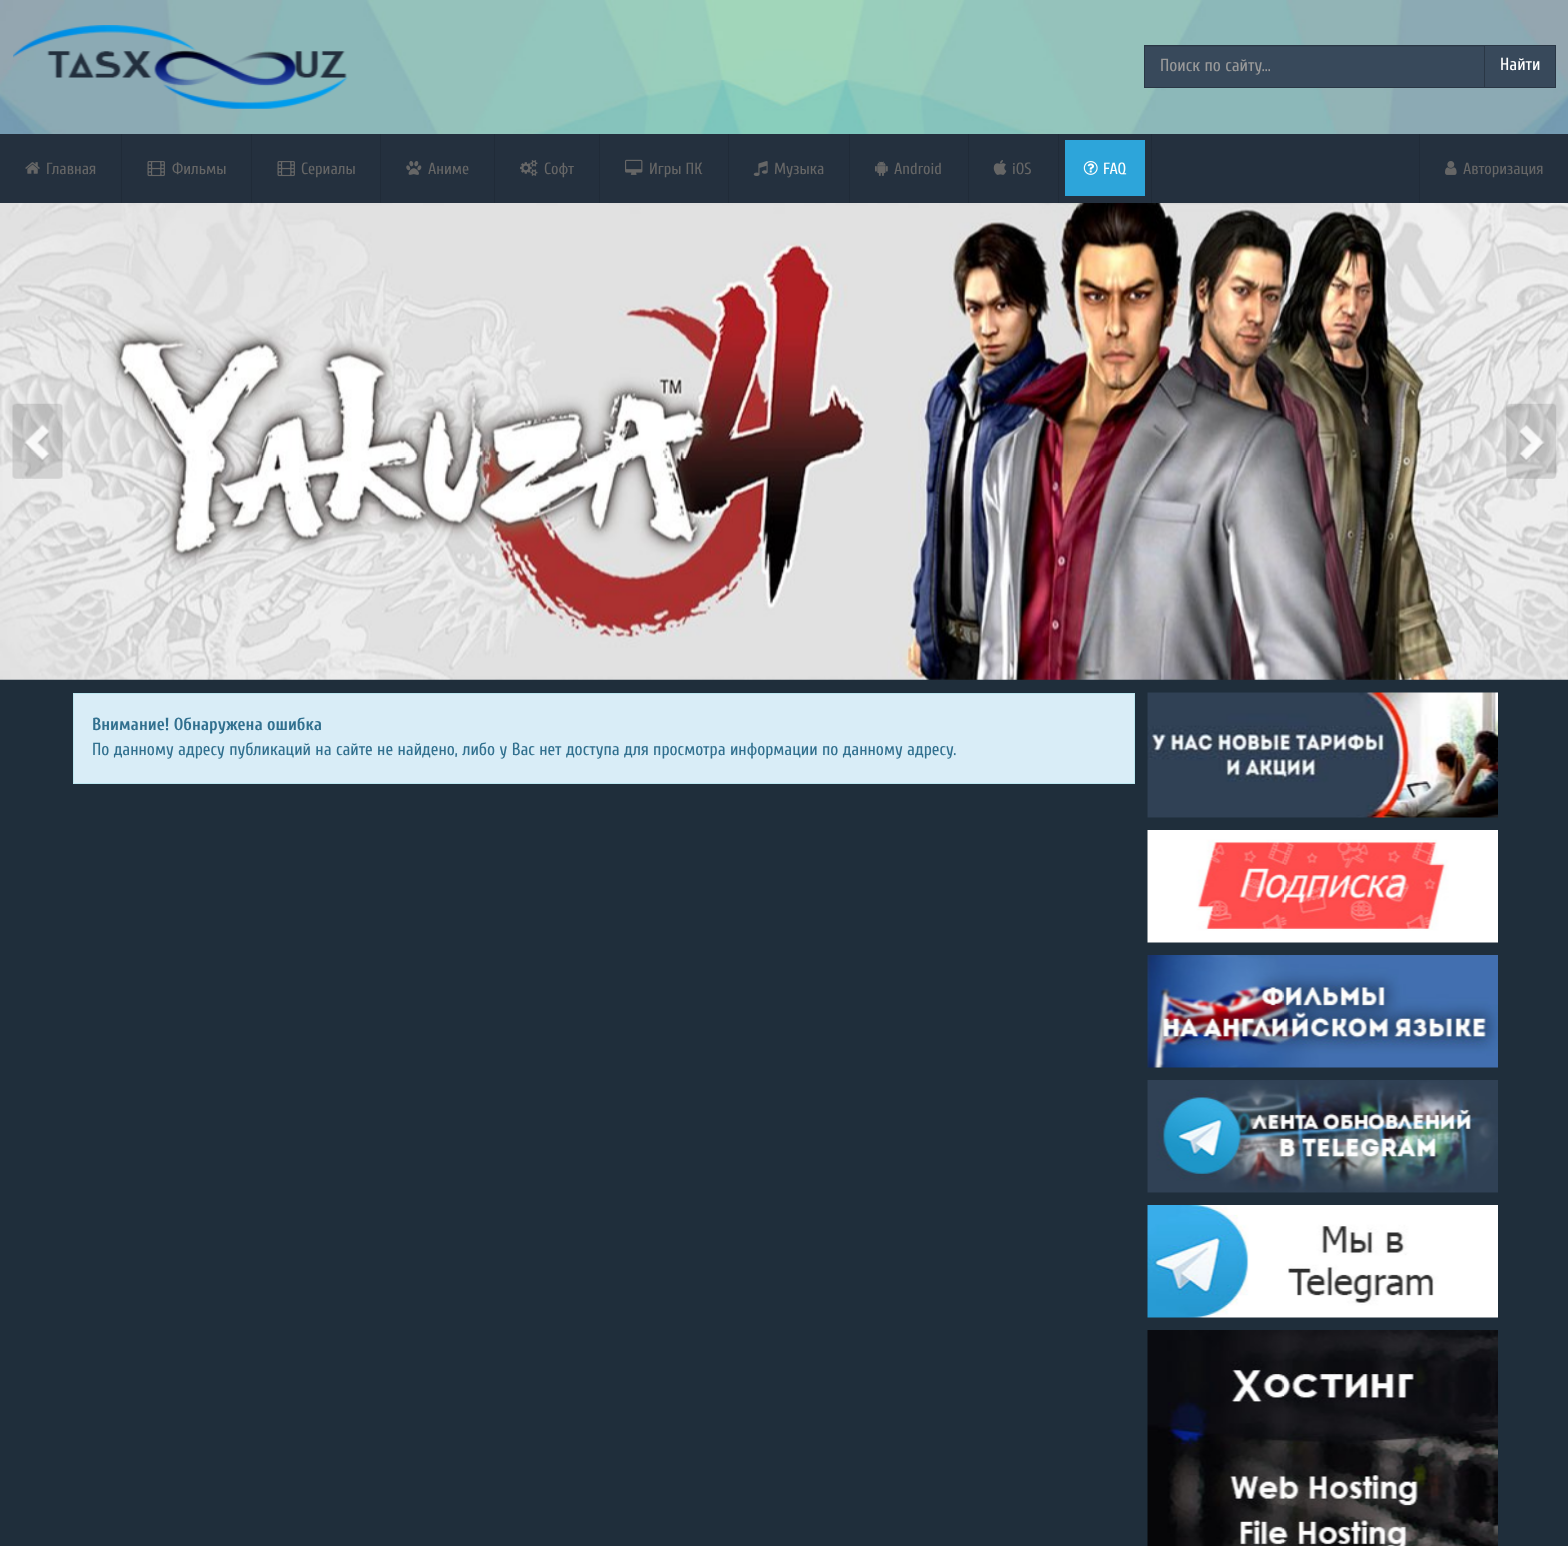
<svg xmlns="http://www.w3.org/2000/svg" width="1568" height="1546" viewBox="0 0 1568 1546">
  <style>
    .t1 { font: 17.5px Cuprum; fill: #999; }
    .t2 { font: 17.5px Cuprum; fill: #fff; }
    .t3 { font: 16.25px Cuprum; fill: #666; }
    .t4 { font: 16.25px Cuprum; fill: #fff; }
    .t5 { font: bold 17.5px Cuprum; fill: #31708f; }
    .t6 { font: 17.5px Cuprum; fill: #31708f; }
  </style>
  <rect width="100%" height="100%" fill="#fff"/>
  <image x="0" y="0" width="1568" height="134" href="images/1.png"/>
  <image x="13" y="25" width="335" height="84" href="images/2.png"/>
  <rect x="1145" y="47" width="339" height="40" fill="#38495b"/>
  <rect x="1145" y="46" width="339" height="1" fill="#344454"/>
  <rect x="1144.5" y="45.5" width="340" height="42" fill="none" stroke="#2a3745"/>
  <text x="1160" y="71" class="t1">Поиск по сайту...</text>
  <rect x="1484.5" y="45.5" width="71" height="42" fill="#38495b" stroke="#2a3745"/>
  <text x="1500" y="70" class="t2">Найти</text>
  <rect x="0" y="679" width="1568" height="867" fill="#1f2e3b"/>
  <rect x="0" y="134" width="1568" height="69" fill="#24303e"/>
  <rect x="121" y="134" width="1" height="69" fill="#202b38"/>
  <image x="25" y="162" width="15" height="12" href="images/3.png"/>
  <text x="46" y="174" class="t3">Главная</text>
  <rect x="251" y="134" width="1" height="69" fill="#202b38"/>
  <image x="147" y="161" width="18" height="16" href="images/4.png"/>
  <text x="172" y="174" class="t3">Фильмы</text>
  <rect x="380" y="134" width="1" height="69" fill="#202b38"/>
  <image x="277" y="161" width="18" height="16" href="images/4.png"/>
  <text x="301" y="174" class="t3">Сериалы</text>
  <rect x="494" y="134" width="1" height="69" fill="#202b38"/>
  <image x="406" y="161" width="16" height="14" href="images/5.png"/>
  <text x="428" y="174" class="t3">Аниме</text>
  <rect x="599" y="134" width="1" height="69" fill="#202b38"/>
  <image x="520" y="160" width="18" height="16" href="images/6.png"/>
  <text x="544" y="174" class="t3">Софт</text>
  <rect x="728" y="134" width="1" height="69" fill="#202b38"/>
  <image x="625" y="159" width="18" height="16" href="images/7.png"/>
  <text x="649" y="174" class="t3">Игры ПК</text>
  <rect x="849" y="134" width="1" height="69" fill="#202b38"/>
  <image x="753" y="161" width="15" height="15" href="images/8.png"/>
  <text x="774" y="174" class="t3">Музыка</text>
  <rect x="968" y="134" width="1" height="69" fill="#202b38"/>
  <image x="875" y="161" width="13" height="15" href="images/9.png"/>
  <text x="894" y="174" class="t3">Android</text>
  <rect x="1058" y="134" width="1" height="69" fill="#202b38"/>
  <image x="993" y="160" width="14" height="15" href="images/10.png"/>
  <text x="1012" y="174" class="t3">iOS</text>
  <rect x="1151" y="134" width="1" height="69" fill="#202b38"/>
  <rect x="1065" y="140" width="80" height="56" fill="#2da5da"/>
  <image x="1083" y="161" width="15" height="14" href="images/11.png"/>
  <text x="1103" y="174" class="t4">FAQ</text>
  <rect x="1419" y="134" width="1" height="69" fill="#202b38"/>
  <image x="1445" y="161" width="12" height="14" href="images/12.png"/>
  <text x="1463" y="174" class="t3">Авторизация</text>
  <image x="0" y="203" width="1568" height="477" href="images/13.png"/>
  <image x="12" y="403" width="51" height="76" href="images/14.png"/>
  <image x="1506" y="403" width="51" height="76" href="images/15.png"/>
  <rect x="73.5" y="693.5" width="1061" height="90" fill="#d9edf7" stroke="#bce8f1"/>
  <text x="92" y="730" class="t5">Внимание! Обнаружена ошибка</text>
  <text x="92" y="755" class="t6">По данному адресу публикаций на сайте не найдено, либо у Вас нет доступа для просмотра информации по данному адресу.</text>
  <image x="1147" y="692" width="351" height="126" href="images/16.png"/>
  <image x="1147" y="830" width="351" height="113" href="images/17.png"/>
  <image x="1147" y="955" width="351" height="113" href="images/18.png"/>
  <image x="1147" y="1080" width="351" height="113" href="images/19.png"/>
  <image x="1147" y="1205" width="351" height="113" href="images/20.png"/>
  <image x="1147" y="1330" width="351" height="216" href="images/21.png"/>
</svg>
